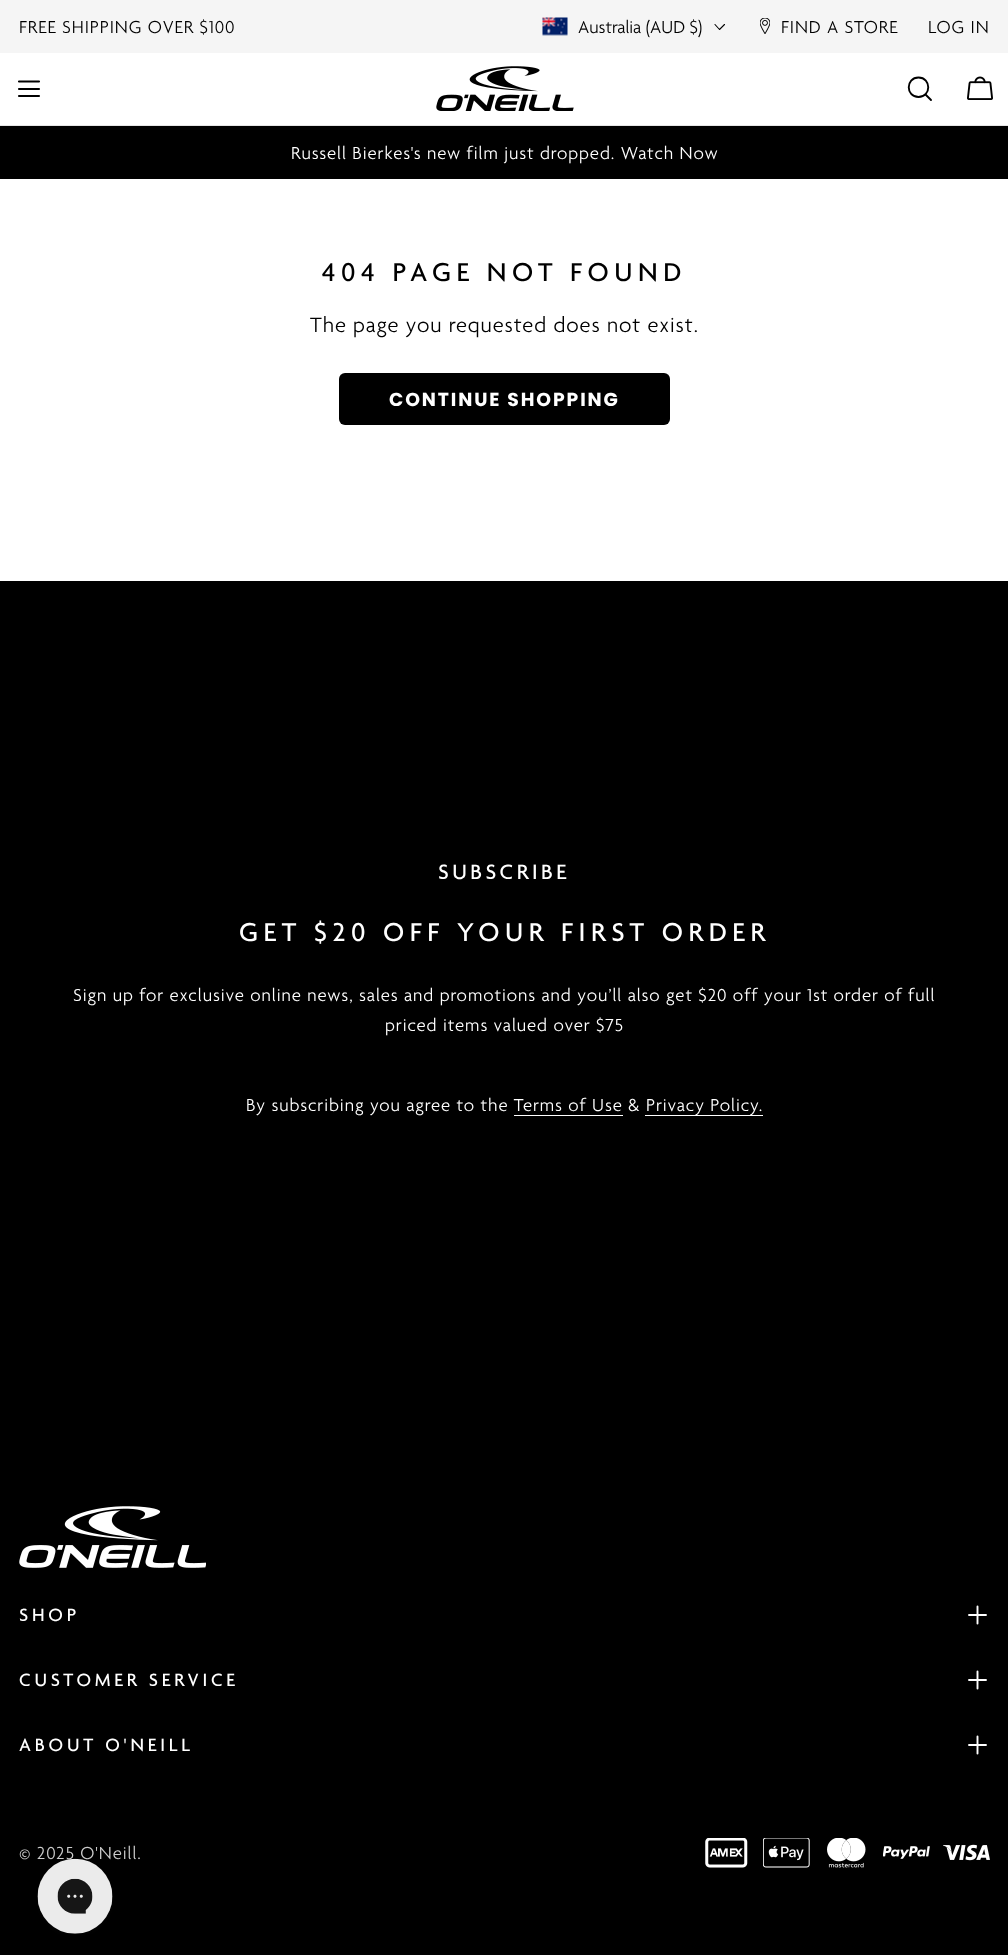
<svg xmlns="http://www.w3.org/2000/svg" width="1008" height="1955" viewBox="0 0 1008 1955">
  <style>
    .t1 { font: 300 18.75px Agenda; letter-spacing: 0.94px; fill: #000; }
    .t2 { font: 300 18.75px Agenda; fill: #000; }
    .t3 { font: 300 18.75px Agenda; letter-spacing: 0.94px; fill: #fff; }
    .t4 { font: 500 28px Agenda; letter-spacing: 5.6px; fill: #000; }
    .t5 { font: 300 22.5px Agenda; letter-spacing: 0.94px; fill: #000; }
    .t6 { font: bold 18.75px Poppins; letter-spacing: 1.9px; fill: #fff; }
    .t7 { font: 500 22.5px Agenda; letter-spacing: 3.5px; fill: #fff; }
    .t8 { font: 500 28px Agenda; letter-spacing: 5.6px; fill: #fff; }
    .t9 { font: 500 19.25px Agenda; letter-spacing: 3.8px; fill: #fff; }
    .t10 { font: 300 18.75px Agenda; letter-spacing: 0.94px; fill: #ccc; }
  </style>
  <rect width="100%" height="100%" fill="#fff"/>
  <rect x="0" y="0" width="1008" height="53" fill="#f5f5f5"/>
  <text x="19" y="33" class="t1">FREE SHIPPING OVER $100</text>
  <image x="542" y="17" width="26" height="19" href="images/1.png"/>
  <text x="578" y="33" class="t2">Australia (AUD $)</text>
  <path d="M724.5 24.5L719.5 29.5L715 24.5" fill="none" stroke="#000" stroke-width="1.1" stroke-linecap="round" stroke-linejoin="round"/>
  <image x="760" y="18" width="10" height="16" href="images/2.png"/>
  <text x="781" y="33" class="t1">FIND A STORE</text>
  <text x="928" y="33" class="t1">LOG IN</text>
  <rect x="0" y="125" width="1008" height="1" fill="#e6e6e6"/>
  <path d="M19 89H39M19 81.5H39M19 96H39" fill="none" stroke="#000" stroke-width="2.1" stroke-linecap="round" stroke-linejoin="round"/>
  <image x="436" y="66" width="138" height="45" href="images/3.png"/>
  <path d="M918.5 97C931.5 97 931.5 77.5 918.5 77.5C905.5 77.5 905.5 97 918.5 97ZM925.5 94.5L931 100" fill="none" stroke="#000" stroke-width="1.9" stroke-linecap="round" stroke-linejoin="round"/>
  <image x="967" y="76" width="26" height="24" href="images/4.png"/>
  <rect x="0" y="126" width="1008" height="53" fill="#000"/>
  <text x="291" y="159" class="t3">Russell Bierkes's new film just dropped. Watch Now</text>
  <text x="322" y="281" class="t4">404 PAGE NOT FOUND</text>
  <text x="310" y="332" class="t5">The page you requested does not exist.</text>
  <rect x="339" y="373" width="331" height="52" rx="6" fill="#000"/>
  <text x="389" y="406" class="t6">CONTINUE SHOPPING</text>
  <rect x="0" y="581" width="1008" height="1374" fill="#000"/>
  <text x="438" y="879" class="t7">SUBSCRIBE</text>
  <text x="239" y="941" class="t8">GET $20 OFF YOUR FIRST ORDER</text>
  <text x="73" y="1001" class="t3">Sign up for exclusive online news, sales and promotions and you’ll also get $20 off your 1st order of full</text>
  <text x="385" y="1031" class="t3">priced items valued over $75</text>
  <text x="246" y="1111" class="t3">By subscribing you agree to the Terms of Use &amp;</text>
  <rect x="645" y="1115" width="118" height="1" fill="#fff"/>
  <text x="646" y="1111" class="t3">Privacy Policy.</text>
  <rect x="514" y="1115" width="109" height="1" fill="#fff"/>
  <image x="19" y="1506" width="187" height="62" href="images/5.png"/>
  <text x="19" y="1621" class="t9">SHOP</text>
  <path d="M969 1615H986M977.5 1606.5V1623.5" fill="none" stroke="#fff" stroke-width="1.9" stroke-linecap="round" stroke-linejoin="round"/>
  <text x="19" y="1686" class="t9">CUSTOMER SERVICE</text>
  <path d="M969 1680H986M977.5 1671.5V1688.5" fill="none" stroke="#fff" stroke-width="1.9" stroke-linecap="round" stroke-linejoin="round"/>
  <text x="19" y="1751" class="t9">ABOUT O'NEILL</text>
  <path d="M969 1745H986M977.5 1736.5V1753.5" fill="none" stroke="#fff" stroke-width="1.9" stroke-linecap="round" stroke-linejoin="round"/>
  <text x="19" y="1859" class="t10">© 2025 O'Neill.</text>
  <image x="705" y="1838" width="43" height="30" href="images/6.png"/>
  <image x="763" y="1838" width="47" height="30" href="images/7.png"/>
  <image x="827" y="1838" width="39" height="30" href="images/8.png"/>
  <image x="883" y="1846" width="47" height="13" href="images/9.png"/>
  <image x="943" y="1844" width="47" height="17" href="images/10.png"/>
  <image x="37" y="1858" width="76" height="76" href="images/11.png"/>
</svg>
